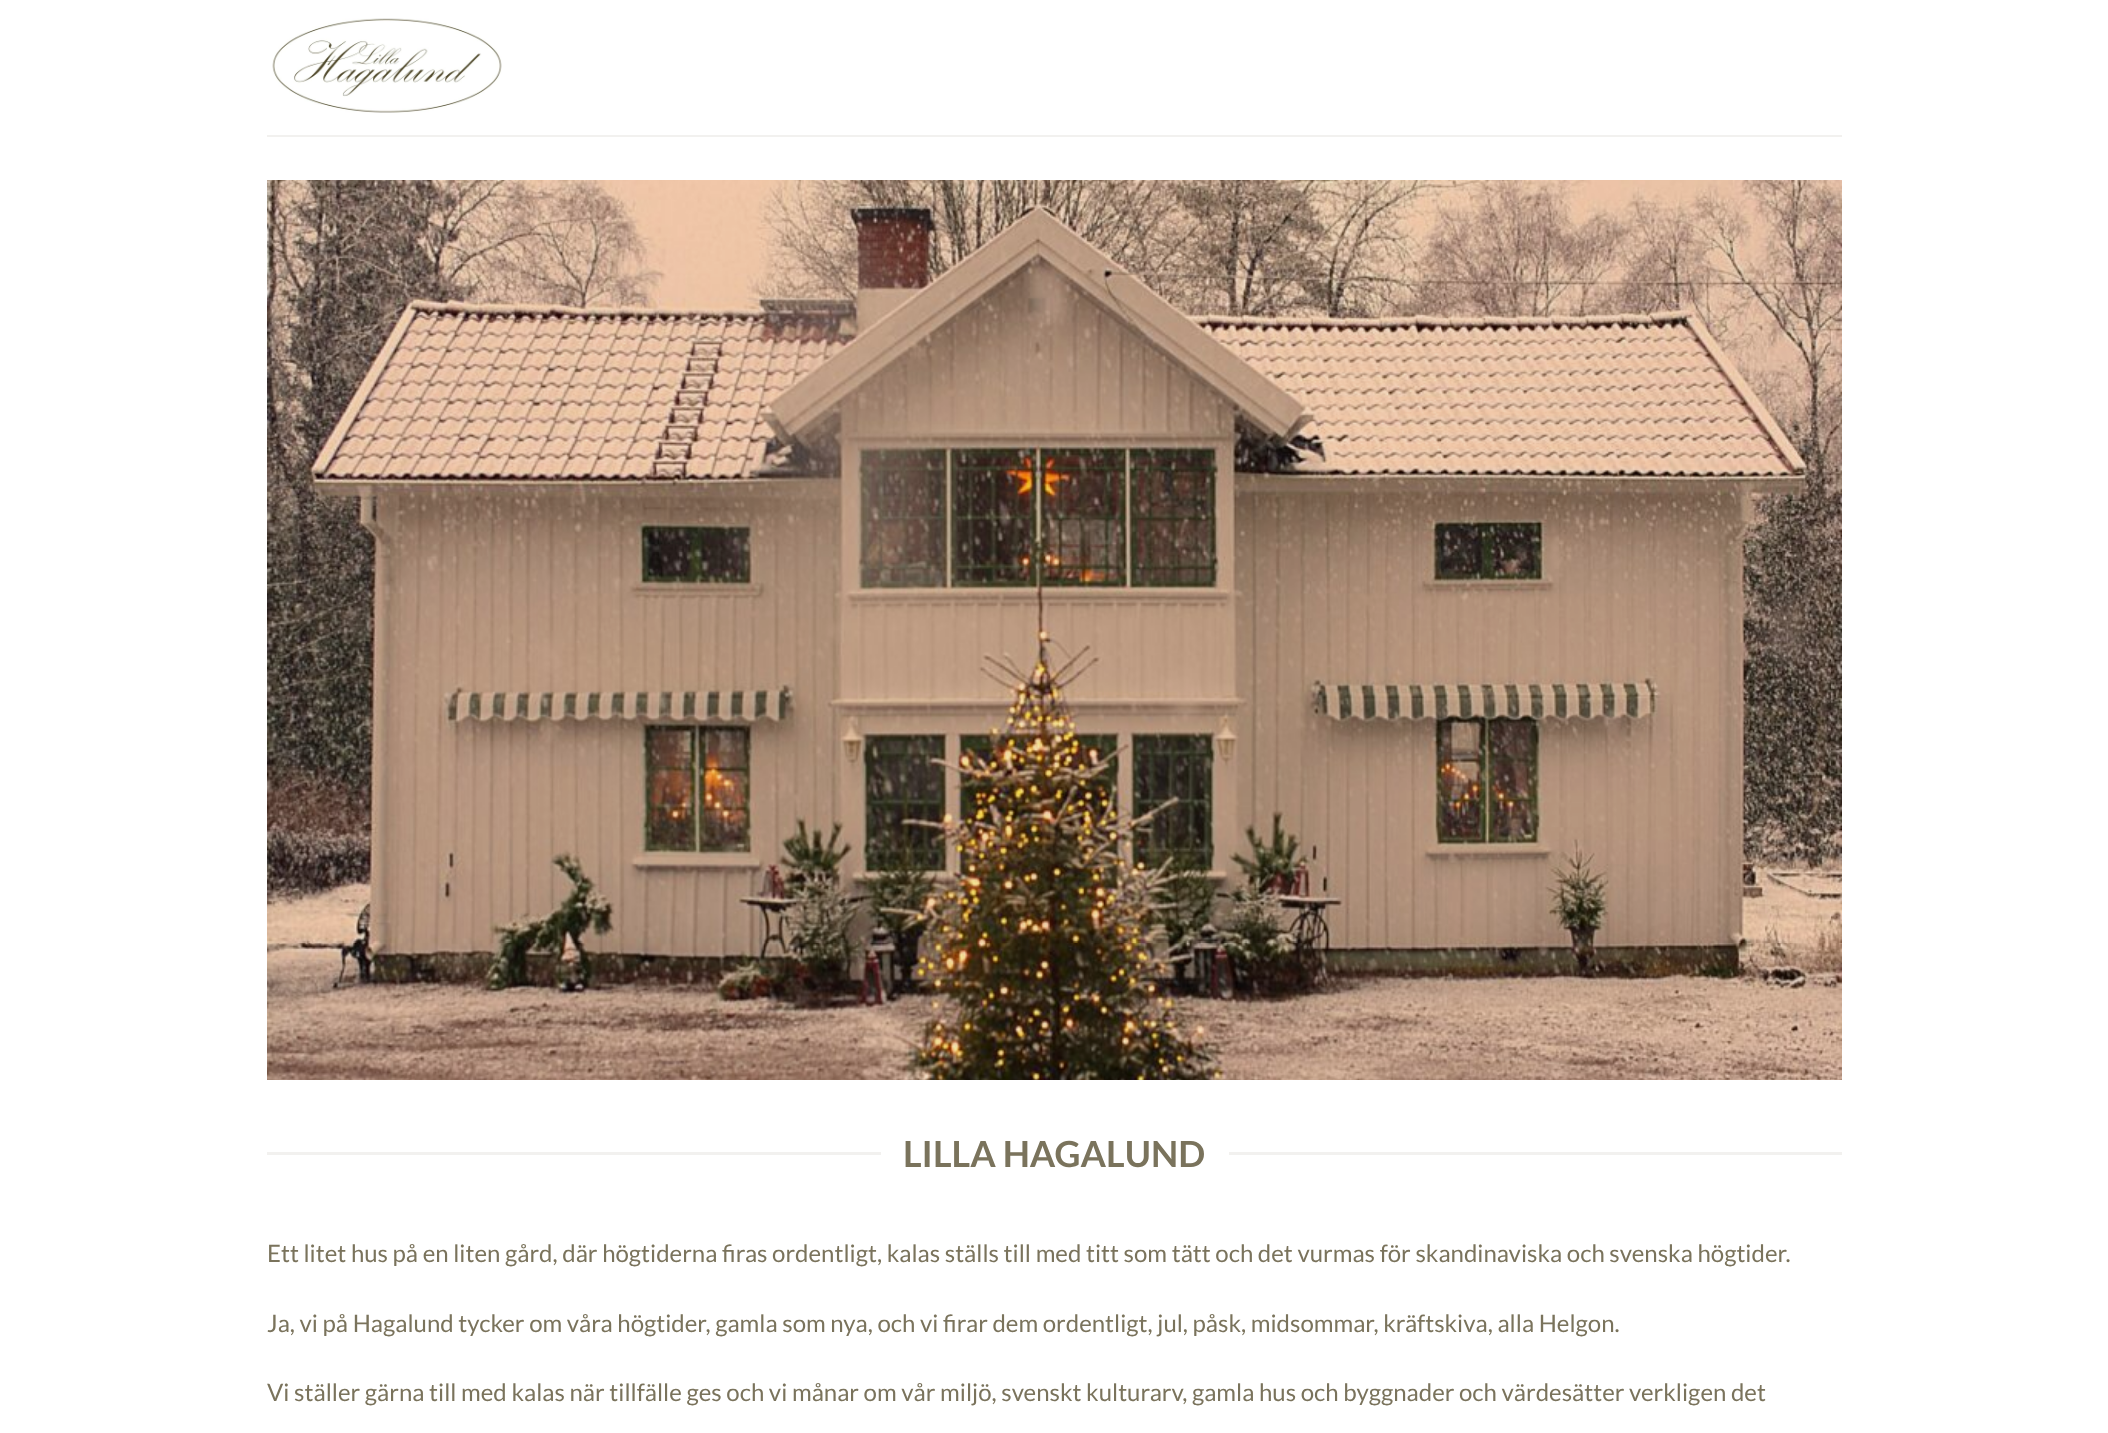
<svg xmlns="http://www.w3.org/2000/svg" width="2108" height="1433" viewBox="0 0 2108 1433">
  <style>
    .t1 { font: bold 36px Lato; fill: #7a735c; }
    .t2 { font: 24px Lato; fill: #7a735c; }
  </style>
  <rect width="100%" height="100%" fill="#fff"/>
  <image x="272" y="18" width="230" height="95" href="images/1.png"/>
  <rect x="267" y="135" width="1575" height="2" fill="#f2f1ef"/>
  <image x="267" y="180" width="1575" height="900" href="images/2.png"/>
  <rect x="267" y="1152" width="614" height="3" fill="#f2f1ef"/>
  <text x="903" y="1167" class="t1">LILLA HAGALUND</text>
  <rect x="1229" y="1152" width="613" height="3" fill="#f2f1ef"/>
  <text x="267" y="1262" class="t2">Ett litet hus på en liten gård, där högtiderna firas ordentligt, kalas ställs till med titt som tätt och det vurmas för skandinaviska och svenska högtider.</text>
  <text x="267" y="1332" class="t2">Ja, vi på Hagalund tycker om våra högtider, gamla som nya, och vi firar dem ordentligt, jul, påsk, midsommar, kräftskiva, alla Helgon.</text>
  <text x="267" y="1401" class="t2">Vi ställer gärna till med kalas när tillfälle ges och vi månar om vår miljö, svenskt kulturarv, gamla hus och byggnader och värdesätter verkligen det</text>
</svg>
